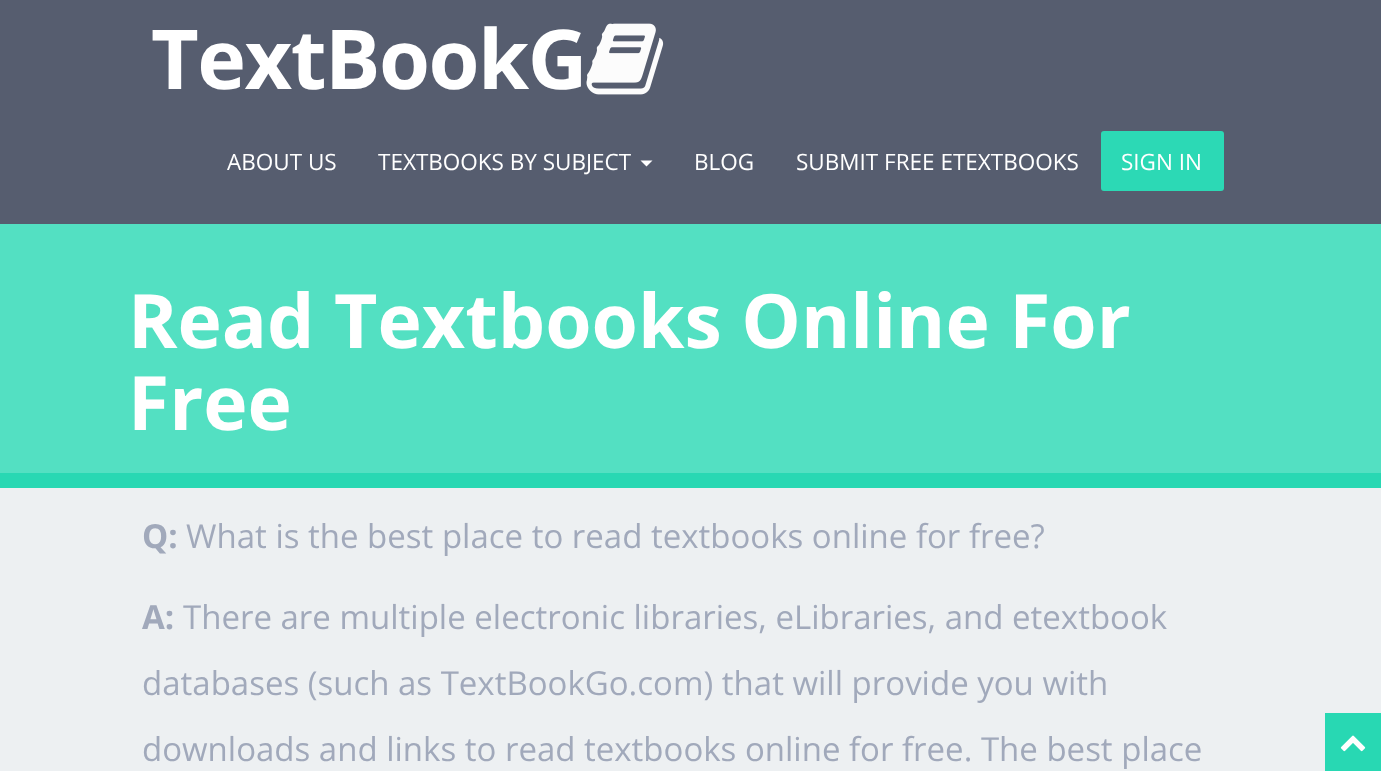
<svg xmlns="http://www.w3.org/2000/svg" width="1381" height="771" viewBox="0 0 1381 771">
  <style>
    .t1 { font: bold 82.5px Open Sans; letter-spacing: -1.5px; fill: #fff; }
    .t2 { font: 22.5px Open Sans; fill: #fff; }
    .t3 { font: bold 75px Open Sans; fill: #fff; }
    .t4 { font: bold 33px Open Sans; fill: #a1a9bb; }
    .t5 { font: 33px Open Sans; fill: #a1a9bb; }
  </style>
  <rect width="100%" height="100%" fill="#28d8b3"/>
  <rect x="0" y="0" width="1381" height="224" fill="#565d6f"/>
  <text x="151" y="89" class="t1">TextBookG</text>
  <image x="586" y="23" width="78" height="72" href="images/1.png"/>
  <text x="227" y="170" class="t2">ABOUT US</text>
  <text x="378" y="170" class="t2">TEXTBOOKS BY SUBJECT</text>
  <path d="M640.5 160.5H652.5L646.5 166.5Z" fill="#fff"/>
  <text x="694" y="170" class="t2">BLOG</text>
  <text x="796" y="170" class="t2">SUBMIT FREE ETEXTBOOKS</text>
  <rect x="1101" y="131" width="123" height="60" rx="3" fill="#2cd9b5"/>
  <text x="1121" y="170" class="t2">SIGN IN</text>
  <rect x="0" y="224" width="1381" height="249" fill="#53e0c2"/>
  <text x="128" y="348" class="t3">Read Textbooks Online For</text>
  <text x="128" y="430" class="t3">Free</text>
  <rect x="0" y="488" width="1381" height="283" fill="#edf0f2"/>
  <text x="142" y="548" class="t4">Q:</text>
  <text x="186" y="548" class="t5">What is the best place to read textbooks online for free?</text>
  <text x="142" y="629" class="t4">A:</text>
  <text x="183" y="629" class="t5">There are multiple electronic libraries, eLibraries, and etextbook</text>
  <text x="142" y="695" class="t5">databases (such as TextBookGo.com) that will provide you with</text>
  <text x="142" y="761" class="t5">downloads and links to read textbooks online for free. The best place</text>
  <rect x="1325" y="713" width="56" height="58" fill="#28d8b3"/>
  <image x="1340" y="735" width="26" height="17" href="images/2.png"/>
</svg>
